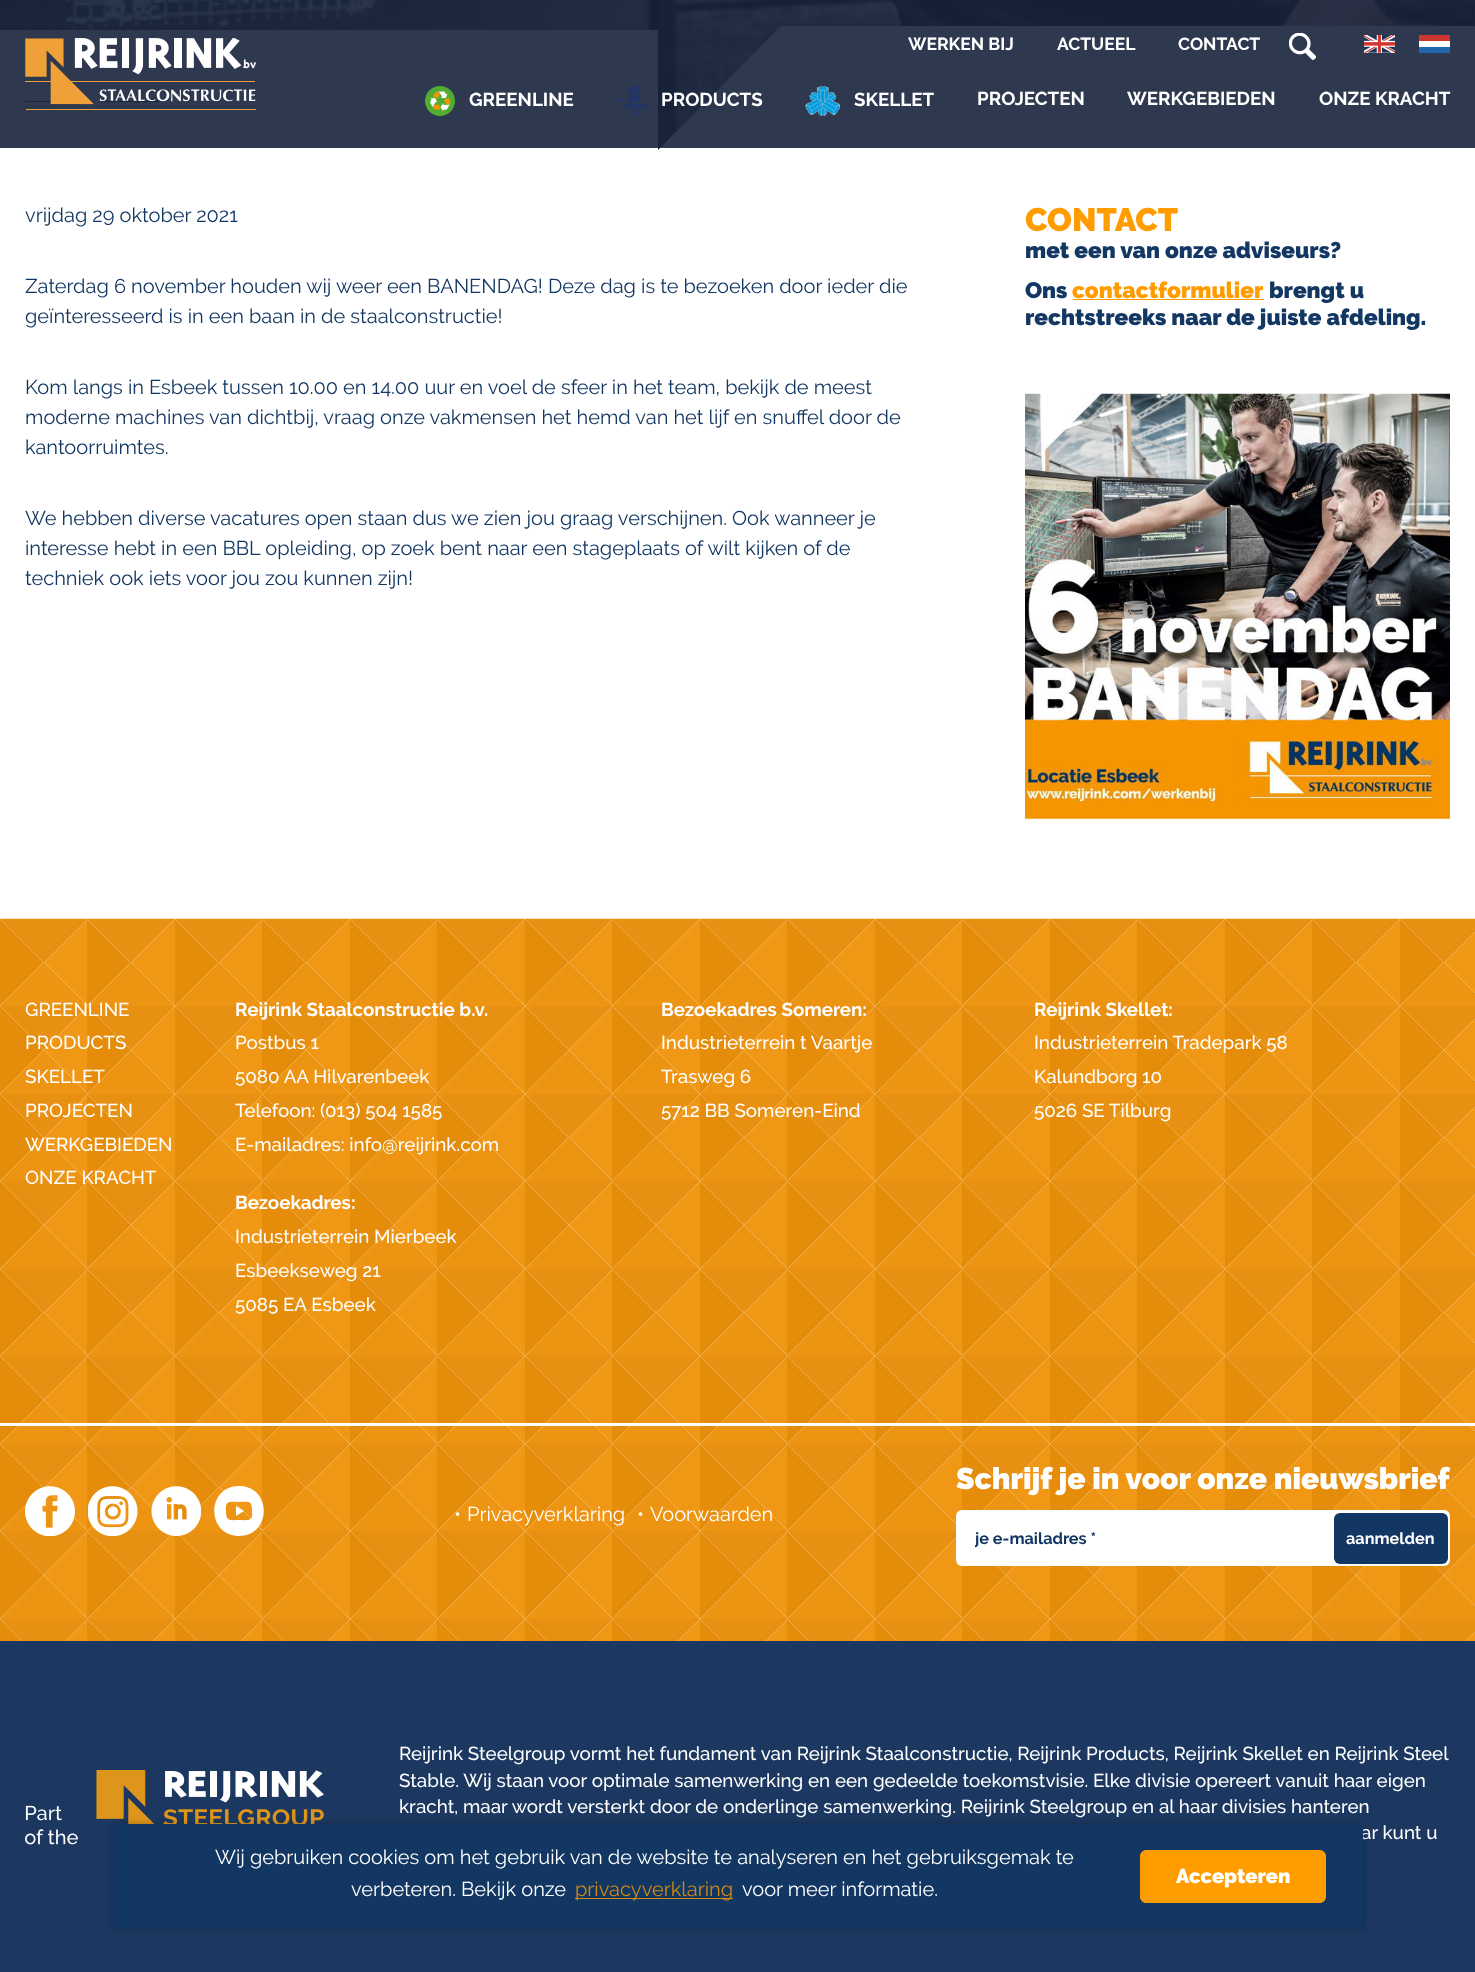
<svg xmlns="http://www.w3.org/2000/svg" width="1475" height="1972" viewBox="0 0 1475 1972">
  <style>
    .t1 { font: bold 17.5px Raleway; fill: #fff; }
    .t2 { font: bold 18.75px Raleway; fill: #fff; }
    .t3 { font: 20px Raleway; fill: #133763; }
    .t4 { font: 900 32.5px Raleway; fill: #ff9d00; }
    .t5 { font: 900 22.5px Raleway; fill: #133763; }
    .t6 { font: 900 22.5px Raleway; fill: #ff9d00; }
    .t7 { font: 500 18.75px Raleway; fill: #fff; }
    .t8 { font: 20px Raleway; fill: #fff; }
    .t9 { font: 900 30px Raleway; fill: #fff; }
    .t10 { font: bold 16.25px Raleway; fill: #133763; }
    .t11 { font: bold 16.25px Raleway; fill: #fff; }
    .t12 { font: 20px Raleway; fill: #d08914; }
    .t13 { font: 900 20px Raleway; fill: #fff; }
  </style>
  <defs>
    <clipPath id="clip1"><rect x="0" y="26" width="1475" height="124"/></clipPath>
    <clipPath id="clip2"><rect x="975" y="1529" width="331" height="19"/></clipPath>
  </defs>
  <rect width="100%" height="100%" fill="#fff"/>
  <image x="0" y="0" width="1475" height="150" href="images/7.png"/>
  <g clip-path="url(#clip1)">
    <path d="M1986 151H-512V30H658V150L781 26H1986Z" fill="#fff"/>
  </g>
  <rect x="25" y="101" width="26" height="1" fill="#133763"/>
  <rect x="100" y="101" width="59" height="1" fill="#133763"/>
  <rect x="0" y="0" width="1475" height="148" fill="#17223be6"/>
  <image x="25" y="38" width="231" height="72" href="images/1.png"/>
  <text x="908" y="50" class="t1">WERKEN BIJ</text>
  <text x="1057" y="50" class="t1">ACTUEEL</text>
  <text x="1178" y="50" class="t1">CONTACT</text>
  <image x="1289" y="33" width="27" height="27" href="images/2.png"/>
  <image x="1364" y="35" width="31" height="18" href="images/3.png"/>
  <rect x="1419" y="35" width="31" height="6" fill="#ce3731"/>
  <rect x="1419" y="41" width="31" height="6" fill="#fff"/>
  <rect x="1419" y="47" width="31" height="6" fill="#2366ac"/>
  <image x="425" y="86" width="30" height="30" href="images/4.png"/>
  <text x="469" y="106" class="t2">GREENLINE</text>
  <image x="617" y="86" width="30" height="30" href="images/5.png"/>
  <text x="661" y="106" class="t2">PRODUCTS</text>
  <image x="805" y="86" width="35" height="30" href="images/6.png"/>
  <text x="854" y="106" class="t2">SKELLET</text>
  <text x="977" y="105" class="t2">PROJECTEN</text>
  <text x="1127" y="105" class="t2">WERKGEBIEDEN</text>
  <text x="1319" y="105" class="t2">ONZE KRACHT</text>
  <text x="25" y="222" class="t3">vrijdag 29 oktober 2021</text>
  <text x="25" y="293" class="t3">Zaterdag 6 november houden wij weer een BANENDAG! Deze dag is te bezoeken door ieder die</text>
  <text x="25" y="323" class="t3">geïnteresseerd is in een baan in de staalconstructie!</text>
  <text x="25" y="394" class="t3">Kom langs in Esbeek tussen 10.00 en 14.00 uur en voel de sfeer in het team, bekijk de meest</text>
  <text x="25" y="424" class="t3">moderne machines van dichtbij, vraag onze vakmensen het hemd van het lijf en snuffel door de</text>
  <text x="25" y="454" class="t3">kantoorruimtes.</text>
  <text x="25" y="525" class="t3">We hebben diverse vacatures open staan dus we zien jou graag verschijnen. Ook wanneer je</text>
  <text x="25" y="555" class="t3">interesse hebt in een BBL opleiding, op zoek bent naar een stageplaats of wilt kijken of de</text>
  <text x="25" y="585" class="t3">techniek ook iets voor jou zou kunnen zijn!</text>
  <text x="1025" y="231" class="t4">CONTACT</text>
  <text x="1025" y="258" class="t5">met een van onze adviseurs?</text>
  <text x="1025" y="298" class="t5">Ons</text>
  <text x="1072" y="298" class="t6">contactformulier</text>
  <rect x="1073" y="299" width="191" height="1" fill="#ff9d00"/>
  <text x="1269" y="298" class="t5">brengt u</text>
  <text x="1025" y="325" class="t5">rechtstreeks naar de juiste afdeling.</text>
  <image x="1025" y="393" width="425" height="426" href="images/8.png"/>
  <image x="0" y="918" width="1475" height="723" href="images/9.png"/>
  <text x="25" y="1016" class="t7">GREENLINE</text>
  <text x="25" y="1049" class="t7">PRODUCTS</text>
  <text x="25" y="1083" class="t7">SKELLET</text>
  <text x="25" y="1117" class="t7">PROJECTEN</text>
  <text x="25" y="1151" class="t7">WERKGEBIEDEN</text>
  <text x="25" y="1184" class="t7">ONZE KRACHT</text>
  <text x="235" y="1016" class="t2">Reijrink Staalconstructie b.v.</text>
  <text x="235" y="1049" class="t7">Postbus 1</text>
  <text x="235" y="1083" class="t7">5080 AA Hilvarenbeek</text>
  <text x="235" y="1117" class="t7">Telefoon: (013) 504 1585</text>
  <text x="235" y="1151" class="t7">E-mailadres: info@reijrink.com</text>
  <text x="235" y="1209" class="t2">Bezoekadres:</text>
  <text x="235" y="1243" class="t7">Industrieterrein Mierbeek</text>
  <text x="235" y="1277" class="t7">Esbeekseweg 21</text>
  <text x="235" y="1311" class="t7">5085 EA Esbeek</text>
  <text x="661" y="1016" class="t2">Bezoekadres Someren:</text>
  <text x="661" y="1049" class="t7">Industrieterrein t Vaartje</text>
  <text x="661" y="1083" class="t7">Trasweg 6</text>
  <text x="661" y="1117" class="t7">5712 BB Someren-Eind</text>
  <text x="1034" y="1016" class="t2">Reijrink Skellet:</text>
  <text x="1034" y="1049" class="t7">Industrieterrein Tradepark 58</text>
  <text x="1034" y="1083" class="t7">Kalundborg 10</text>
  <text x="1034" y="1117" class="t7">5026 SE Tilburg</text>
  <rect x="0" y="1423" width="1475" height="3" fill="#fff"/>
  <image x="25" y="1486" width="50" height="50" href="images/10.png"/>
  <image x="88" y="1486" width="50" height="50" href="images/11.png"/>
  <image x="151" y="1486" width="50" height="50" href="images/12.png"/>
  <path d="M239 1486C272 1486 272 1536 239 1536C206 1536 206 1486 239 1486ZM239 1502C230 1502 225 1500 226 1511C226 1522 230 1520 239 1520C248 1520 253 1522 252 1511C252 1500 249 1502 239 1502ZM236 1506L244 1511L236 1516Z" fill="#fff" fill-rule="evenodd"/>
  <text x="454" y="1521" class="t8">•</text>
  <text x="467" y="1521" class="t8">Privacyverklaring</text>
  <text x="637" y="1521" class="t8">•</text>
  <text x="650" y="1521" class="t8">Voorwaarden</text>
  <text x="956" y="1489" class="t9">Schrijf je in voor onze nieuwsbrief</text>
  <rect x="956" y="1510" width="494" height="56" rx="6" fill="#fff"/>
  <g clip-path="url(#clip2)">
    <text x="975" y="1544" class="t10">je e-mailadres *</text>
  </g>
  <rect x="1334" y="1513" width="114" height="51" rx="6" fill="#133763"/>
  <text x="1346" y="1544" class="t11">aanmelden</text>
  <rect x="0" y="1641" width="1475" height="331" fill="#1c3860"/>
  <image x="25" y="1770" width="299" height="75" href="images/13.png"/>
  <text x="399" y="1760" class="t7">Reijrink Steelgroup vormt het fundament van Reijrink Staalconstructie, Reijrink Products, Reijrink Skellet en Reijrink Steel</text>
  <text x="399" y="1787" class="t7">Stable. Wij staan voor optimale samenwerking en een gedeelde toekomstvisie. Elke divisie opereert vanuit haar eigen</text>
  <text x="399" y="1813" class="t7">kracht, maar wordt versterkt door de onderlinge samenwerking. Reijrink Steelgroup en al haar divisies hanteren</text>
  <text x="1361" y="1839" class="t7">ar kunt u</text>
  <rect x="113" y="1824" width="1250" height="105" rx="6" fill="#00000040" filter="blur(3px)"/>
  <rect x="113" y="1824" width="1250" height="105" rx="6" fill="#133763"/>
  <text x="215" y="1864" class="t8">Wij gebruiken cookies om het gebruik van de website te analyseren en het gebruiksgemak te</text>
  <text x="351" y="1896" class="t8">verbeteren. Bekijk onze</text>
  <rect x="575" y="1898" width="158" height="1" fill="#d08914"/>
  <text x="575" y="1896" class="t12">privacyverklaring</text>
  <text x="742" y="1896" class="t8">voor meer informatie.</text>
  <rect x="1140.5" y="1850.5" width="185" height="52" rx="5.5" fill="#ff9d00" stroke="#ff9d00"/>
  <text x="1176" y="1883" class="t13">Accepteren</text>
</svg>
